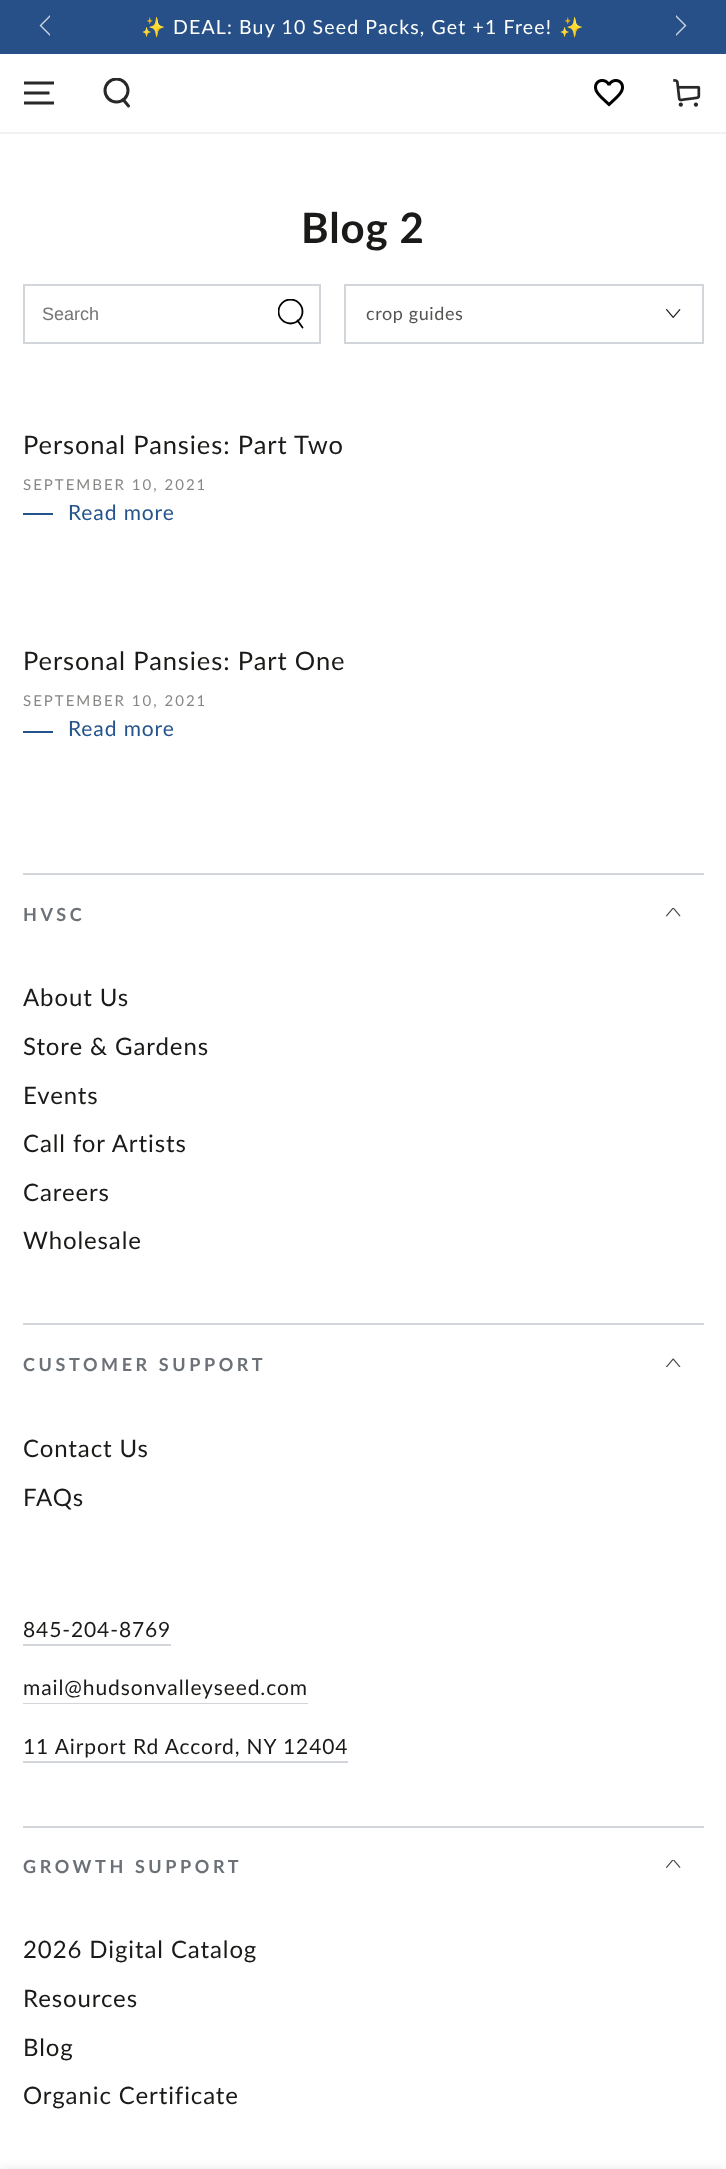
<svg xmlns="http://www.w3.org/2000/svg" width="726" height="2169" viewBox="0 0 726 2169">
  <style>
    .t1 { font: 19.5px Noto Color Emoji; letter-spacing: 1.15px; fill: #fff; }
    .t2 { font: 19.5px Lato; letter-spacing: 1.15px; fill: #fff; }
    .t3 { font: bold 42px Lato; letter-spacing: 0.9px; fill: #1a1b18; }
    .t4 { font: 18px Liberation Sans; fill: #757575; }
    .t5 { font: 18px Lato; letter-spacing: 0.6px; fill: #535452; }
    .t6 { font: 25.5px Lato; letter-spacing: 0.9px; fill: #1a1b18; }
    .t7 { font: 15px Lato; letter-spacing: 2px; fill: #878786; }
    .t8 { font: 21px Lato; letter-spacing: 0.9px; fill: #24548c; }
    .t9 { font: bold 18px Lato; letter-spacing: 3.6px; fill: #6b7177; }
    .t10 { font: 24px Lato; letter-spacing: 0.9px; fill: #1a1b18; }
    .t11 { font: 21px Lato; letter-spacing: 0.9px; fill: #1a1b18; }
  </style>
  <defs>
    <clipPath id="clip1"><rect x="102" y="78" width="30" height="30"/></clipPath>
    <clipPath id="clip2"><rect x="278" y="299" width="27" height="30"/></clipPath>
  </defs>
  <rect width="100%" height="100%" fill="#fff"/>
  <rect x="0" y="0" width="726" height="54" fill="#265087"/>
  <path d="M39.5 25.5L50 36V34L41.5 25.5L50 17V15Z" fill="#c9d3e1" fill-rule="evenodd"/>
  <path d="M686.5 25.5L676 36V34L684.5 25.5L676 17V15Z" fill="#c9d3e1" fill-rule="evenodd"/>
  <text x="141" y="34" class="t1">✨</text>
  <text x="173" y="34" class="t2">DEAL: Buy 10 Seed Packs, Get +1 Free!</text>
  <text x="559" y="34" class="t1">✨</text>
  <rect x="0" y="132" width="726" height="2" fill="#f2f2f4"/>
  <path d="M24 103H54M24 93H49.5M24 83H54" fill="none" stroke="#282828" stroke-width="2.8"/>
  <g clip-path="url(#clip1)">
    <circle cx="116.5" cy="90.5" r="11.5" fill="none" stroke="#282828" stroke-width="3"/>
  </g>
  <path d="M123.5 100L128.5 106" fill="none" stroke="#282828" stroke-width="3" stroke-linecap="round"/>
  <image x="594" y="79" width="30" height="28" href="images/1.png"/>
  <image x="673" y="79" width="28" height="28" href="images/2.png"/>
  <text x="301" y="243" class="t3">Blog 2</text>
  <rect x="24" y="285" width="296" height="58" fill="none" stroke="#d2d5d9" stroke-width="2"/>
  <text x="42" y="320" class="t4">Search</text>
  <g clip-path="url(#clip2)">
    <circle cx="290.5" cy="311.5" r="12" fill="none" stroke="#000" stroke-width="1.8"/>
  </g>
  <path d="M297.5 320.5L302.5 327.5" fill="none" stroke="#000" stroke-width="1.8" stroke-linecap="round"/>
  <rect x="345" y="285" width="358" height="58" fill="none" stroke="#d2d5d9" stroke-width="2"/>
  <text x="366" y="320" class="t5">crop guides</text>
  <image x="666" y="309" width="15" height="9" href="images/3.png"/>
  <text x="23" y="454" class="t6">Personal Pansies: Part Two</text>
  <text x="23" y="490" class="t7">SEPTEMBER 10, 2021</text>
  <rect x="23" y="513" width="30" height="2" fill="#24548c"/>
  <text x="68" y="520" class="t8">Read more</text>
  <text x="23" y="670" class="t6">Personal Pansies: Part One</text>
  <text x="23" y="706" class="t7">SEPTEMBER 10, 2021</text>
  <rect x="23" y="731" width="30" height="2" fill="#24548c"/>
  <text x="68" y="736" class="t8">Read more</text>
  <rect x="23" y="873" width="681" height="2" fill="#d2d5d9"/>
  <rect x="23" y="1323" width="681" height="2" fill="#d2d5d9"/>
  <text x="23" y="921" class="t9">HVSC</text>
  <image x="666" y="908" width="15" height="9" href="images/4.png"/>
  <text x="23" y="1006" class="t10">About Us</text>
  <text x="23" y="1055" class="t10">Store &amp; Gardens</text>
  <text x="23" y="1104" class="t10">Events</text>
  <text x="23" y="1152" class="t10">Call for Artists</text>
  <text x="23" y="1201" class="t10">Careers</text>
  <text x="23" y="1249" class="t10">Wholesale</text>
  <rect x="23" y="1826" width="681" height="2" fill="#d2d5d9"/>
  <text x="23" y="1371" class="t9">CUSTOMER SUPPORT</text>
  <image x="666" y="1358" width="15" height="9" href="images/5.png"/>
  <text x="23" y="1457" class="t10">Contact Us</text>
  <text x="23" y="1506" class="t10">FAQs</text>
  <text x="23" y="1637" class="t11">845-204-8769</text>
  <rect x="23" y="1644" width="148" height="2" fill="#d2d5d9"/>
  <text x="23" y="1695" class="t11">mail@hudsonvalleyseed.com</text>
  <rect x="23" y="1703" width="285" height="1" fill="#d2d5d9"/>
  <text x="23" y="1754" class="t11">11 Airport Rd Accord, NY 12404</text>
  <rect x="23" y="1761" width="325" height="2" fill="#d2d5d9"/>
  <text x="23" y="1873" class="t9">GROWTH SUPPORT</text>
  <image x="666" y="1860" width="15" height="8" href="images/6.png"/>
  <text x="23" y="1958" class="t10">2026 Digital Catalog</text>
  <text x="23" y="2007" class="t10">Resources</text>
  <text x="23" y="2056" class="t10">Blog</text>
  <text x="23" y="2104" class="t10">Organic Certificate</text>
  <rect x="0" y="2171" width="726" height="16" fill="#1a1b1826" filter="blur(6px)"/>
</svg>
